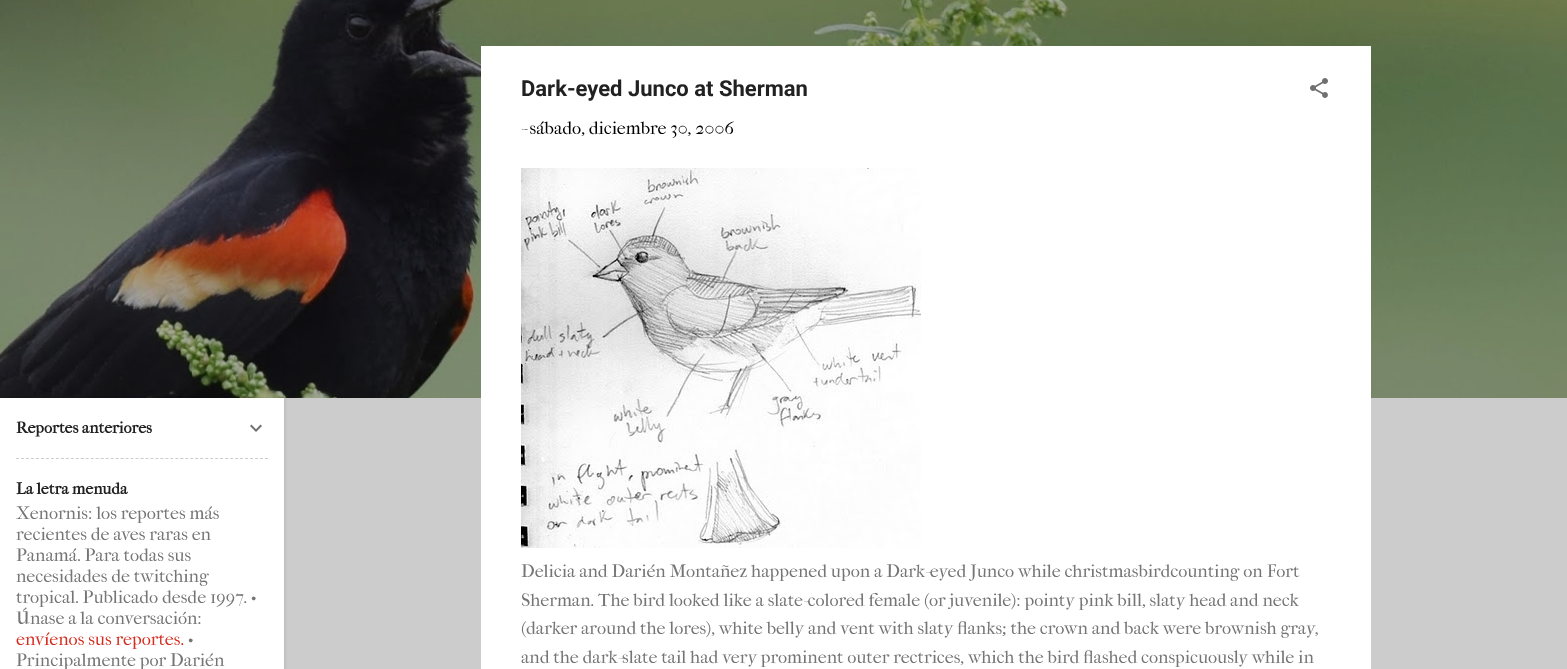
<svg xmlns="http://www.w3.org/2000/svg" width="1567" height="669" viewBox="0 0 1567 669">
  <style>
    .t1 { font: bold 16px IM FELL French Canon; fill: #212121; }
    .t2 { font: 18px IM FELL French Canon; fill: #757575; }
    .t3 { font: 18px IM FELL French Canon; fill: #d52c1f; }
    .t4 { font: bold 22px Roboto; fill: #212121; }
    .t5 { font: 18px IM FELL French Canon; fill: #000; }
  </style>
  <rect width="100%" height="100%" fill="#ccc"/>
  <image x="0" y="0" width="1567" height="398" href="images/2.png"/>
  <rect x="1" y="399" width="284" height="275" fill="#0000001a" filter="blur(1.5px)"/>
  <rect x="0" y="398" width="284" height="271" fill="#fff"/>
  <text x="16" y="433" class="t1">Reportes anteriores</text>
  <image x="250" y="424" width="12" height="8" href="images/1.png"/>
  <path d="M16 458.5H268" fill="none" stroke="#ccc" stroke-dasharray="3 1.98"/>
  <text x="16" y="494" class="t1">La letra menuda</text>
  <text x="16" y="519" class="t2">Xenornis: los reportes más</text>
  <text x="16" y="540" class="t2">recientes de aves raras en</text>
  <text x="16" y="561" class="t2">Panamá. Para todas sus</text>
  <text x="16" y="582" class="t2">necesidades de twitching</text>
  <text x="16" y="603" class="t2">tropical. Publicado desde 1997. •</text>
  <text x="16" y="624" class="t2">Únase a la conversación:</text>
  <text x="16" y="645" class="t3">envíenos sus reportes.</text>
  <text x="188" y="645" class="t2">•</text>
  <text x="16" y="666" class="t2">Principalmente por Darién</text>
  <rect x="481" y="46" width="890" height="623" fill="#fff"/>
  <text x="521" y="96" class="t4">Dark-eyed Junco at Sherman</text>
  <image x="1310" y="78" width="18" height="20" href="images/3.png"/>
  <text x="521" y="134" class="t5">- sábado, diciembre 30, 2006</text>
  <image x="521" y="168" width="400" height="380" href="images/4.png"/>
  <text x="521" y="577" class="t2">Delicia and Darién Montañez happened upon a Dark-eyed Junco while christmasbirdcounting on Fort</text>
  <text x="521" y="606" class="t2">Sherman. The bird looked like a slate-colored female (or juvenile): pointy pink bill, slaty head and neck</text>
  <text x="521" y="634" class="t2">(darker around the lores), white belly and vent with slaty flanks; the crown and back were brownish gray,</text>
  <text x="521" y="663" class="t2">and the dark-slate tail had very prominent outer rectrices, which the bird flashed conspicuously while in</text>
</svg>
